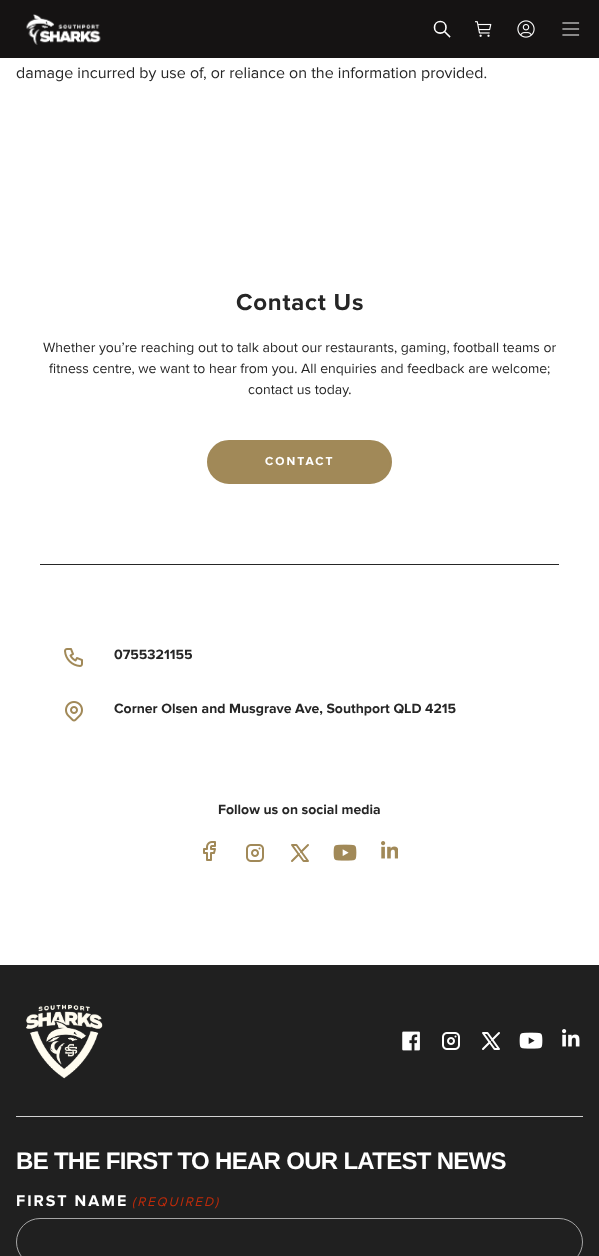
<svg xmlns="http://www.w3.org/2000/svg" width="599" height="1256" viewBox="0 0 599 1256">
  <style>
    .t1 { font: 16px Proxima Nova; fill: #262626; }
    .t2 { font: bold 24px Proxima Nova; letter-spacing: 0.75px; fill: #262626; }
    .t3 { font: 14px Proxima Nova; fill: #262626; }
    .t4 { font: bold 12px Proxima Nova; letter-spacing: 2px; fill: #fff; }
    .t5 { font: bold 14px Proxima Nova; fill: #262626; }
    .t6 { font: bold 24px Liberation Sans; letter-spacing: -0.7px; fill: #fff; }
    .t7 { font: bold 16px Proxima Nova; letter-spacing: 2px; fill: #fff; }
    .t8 { font: italic 13px Proxima Nova; letter-spacing: 2px; fill: #c02b0a; }
  </style>
  <rect width="100%" height="100%" fill="#fff"/>
  <rect x="0" y="0" width="599" height="58" fill="#151313"/>
  <image x="26" y="14" width="75" height="31" href="images/1.png"/>
  <path d="M449.5 36.5L444.5 31.5M434.5 27.5C434.5 35 446 35 446 27.5C446 19.5 434.5 19.5 434.5 27.5Z" fill="none" stroke="#fff" stroke-width="1.6" stroke-linecap="square" stroke-linejoin="round"/>
  <image x="475" y="21" width="17" height="16" href="images/2.png"/>
  <image x="517" y="20" width="18" height="18" href="images/3.png"/>
  <path d="M563 23H578.5M563 29H578.5M563 35H578.5" fill="none" stroke="#fff" stroke-width="1.2" stroke-linecap="square" stroke-linejoin="round"/>
  <text x="16" y="78" class="t1">damage incurred by use of, or reliance on the information provided.</text>
  <text x="236" y="310" class="t2">Contact Us</text>
  <text x="43" y="352" class="t3">Whether you’re reaching out to talk about our restaurants, gaming, football teams or</text>
  <text x="49" y="373" class="t3">fitness centre, we want to hear from you. All enquiries and feedback are welcome;</text>
  <text x="248" y="394" class="t3">contact us today.</text>
  <rect x="208" y="441" width="183" height="42" rx="21" fill="#a18958" stroke="#a18958" stroke-width="2"/>
  <text x="265" y="465" class="t4">CONTACT</text>
  <rect x="40" y="564" width="519" height="1" fill="#262626"/>
  <image x="64" y="648" width="19" height="19" href="images/4.png"/>
  <text x="114" y="659" class="t5">0755321155</text>
  <image x="65" y="701" width="18" height="21" href="images/5.png"/>
  <text x="114" y="713" class="t5">Corner Olsen and Musgrave Ave, Southport QLD 4215</text>
  <text x="218" y="814" class="t5">Follow us on social media</text>
  <image x="203" y="841" width="13" height="20" href="images/6.png"/>
  <image x="246" y="844" width="18" height="18" href="images/7.png"/>
  <path d="M292 861L299 854M301 852L308 845M292 845L303.5 861H308L296.5 845Z" fill="none" stroke="#a18958" stroke-width="2" stroke-linecap="round" stroke-linejoin="round"/>
  <image x="333" y="844" width="24" height="17" href="images/8.png"/>
  <image x="381" y="841" width="17" height="18" href="images/9.png"/>
  <rect x="0" y="965" width="599" height="291" fill="#202020"/>
  <image x="26" y="1004" width="77" height="75" href="images/10.png"/>
  <image x="402" y="1031" width="18" height="20" href="images/11.png"/>
  <image x="442" y="1032" width="18" height="18" href="images/12.png"/>
  <path d="M483 1049L490 1042M492 1040L499 1033M483 1033L494.5 1049H499L487.5 1033Z" fill="none" stroke="#fff" stroke-width="2" stroke-linecap="round" stroke-linejoin="round"/>
  <image x="519" y="1032" width="24" height="17" href="images/13.png"/>
  <image x="562" y="1029" width="18" height="18" href="images/14.png"/>
  <rect x="16" y="1116" width="567" height="1" fill="#d2d2d2"/>
  <text x="16" y="1169" class="t6">BE THE FIRST TO HEAR OUR LATEST NEWS</text>
  <text x="16" y="1206" class="t7">FIRST NAME</text>
  <text x="132" y="1206" class="t8">(REQUIRED)</text>
  <rect x="16.5" y="1218.5" width="566" height="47" rx="23.5" fill="none" stroke="#a6a6a6"/>
</svg>
